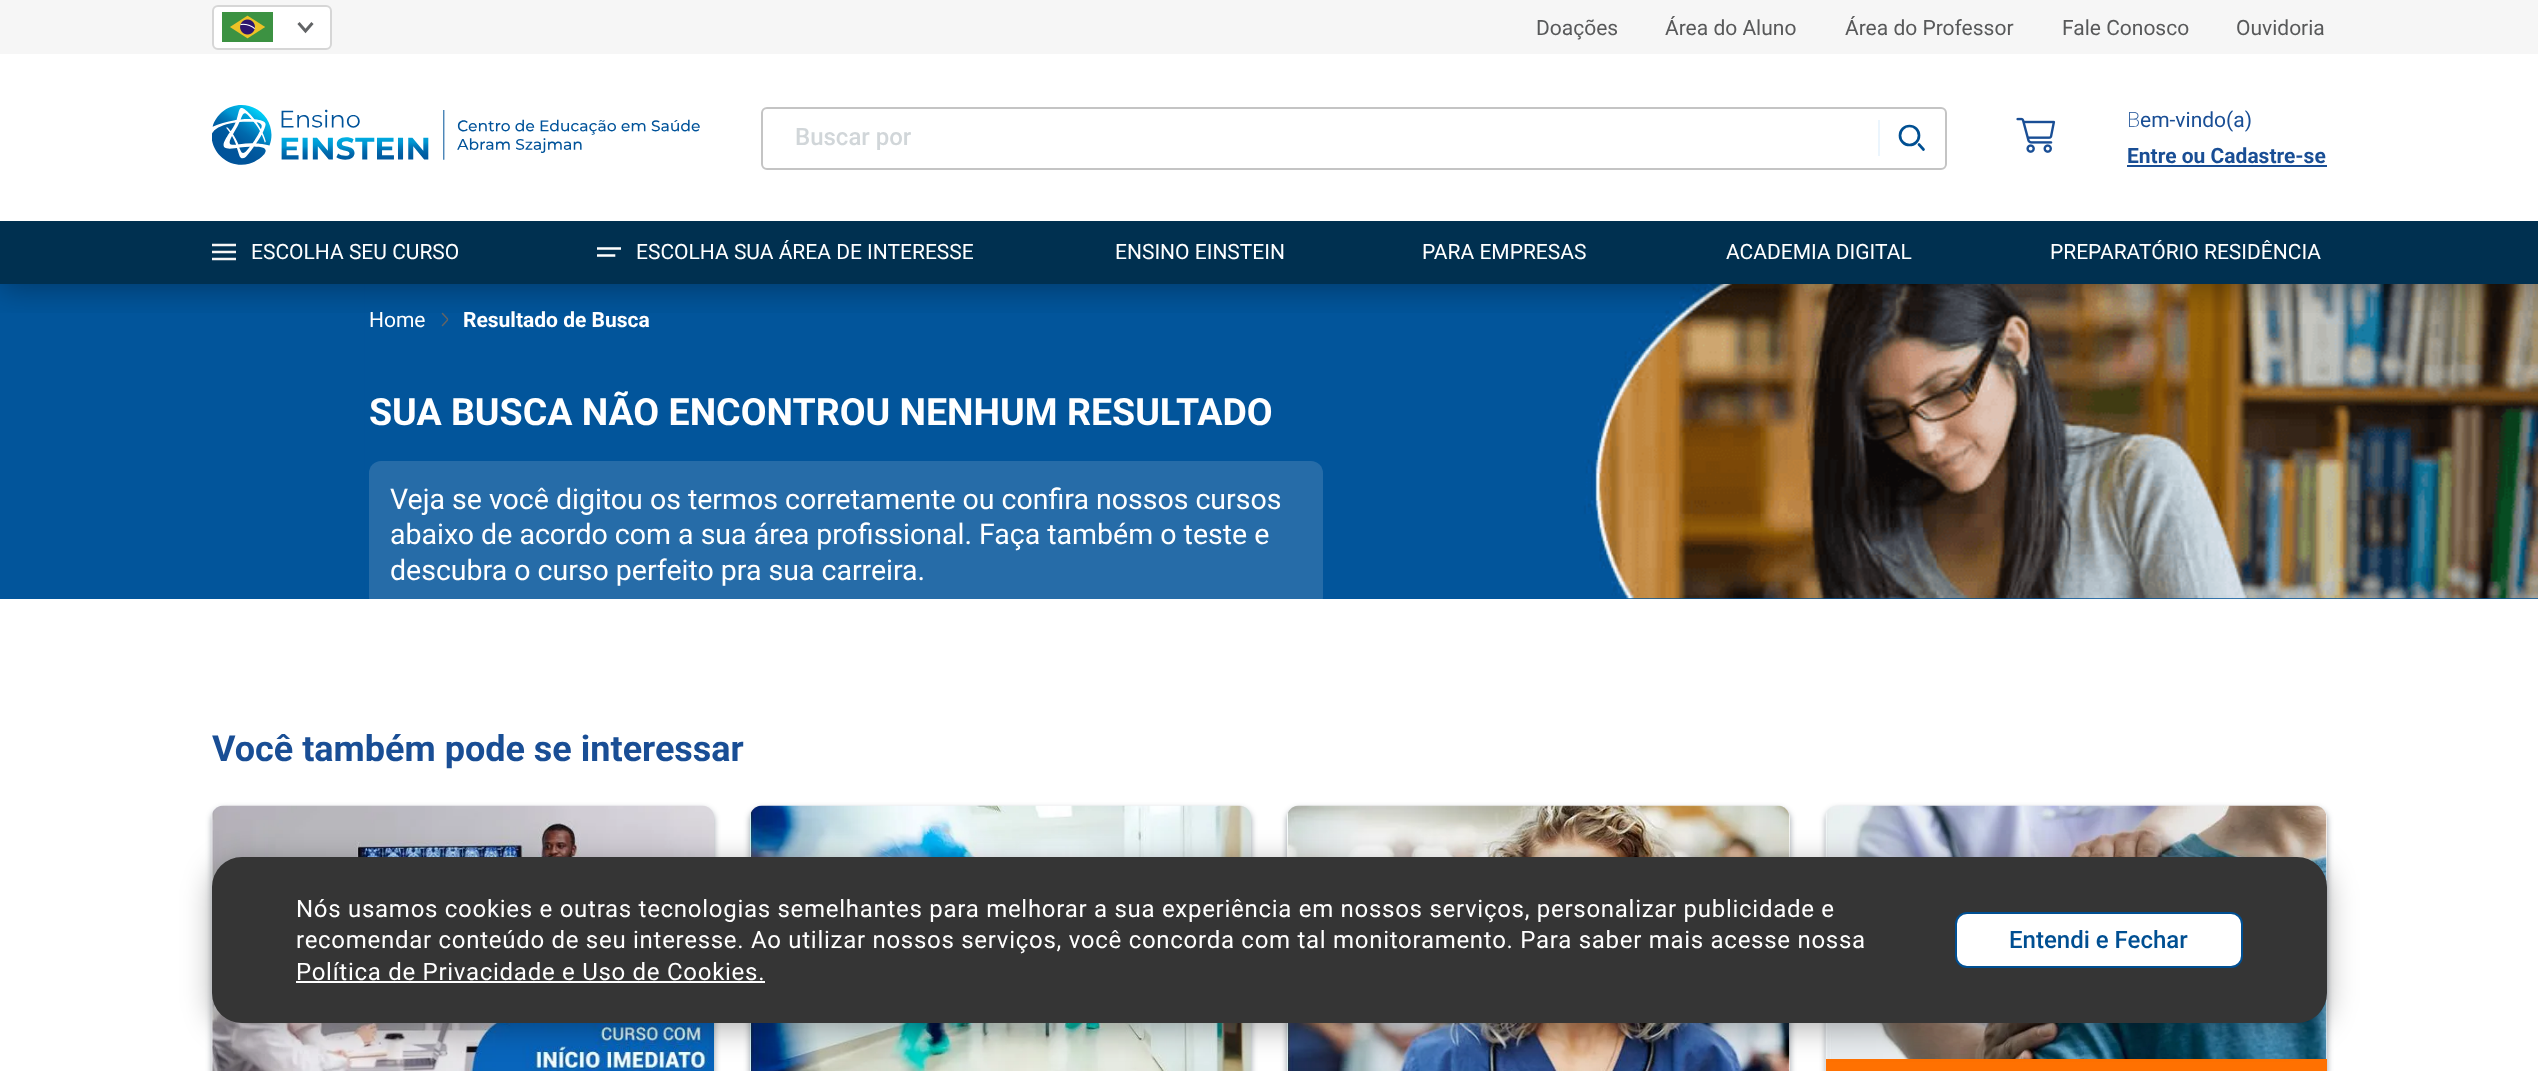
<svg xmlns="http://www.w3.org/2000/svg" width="2538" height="1071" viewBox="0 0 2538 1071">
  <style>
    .t1 { font: 21px Roboto; fill: #58595a; }
    .t2 { font: 500 24px Roboto; fill: #d1d6d9; }
    .t3 { font: 200 21px Noto Sans; fill: #194e95; }
    .t4 { font: 21px Roboto; fill: #194e95; }
    .t5 { font: bold 21px Roboto; fill: #194e95; }
    .t6 { font: 21px Roboto; fill: #fff; }
    .t7 { font: bold 21px Roboto; fill: #fff; }
    .t8 { font: bold 37.5px Roboto; fill: #fff; }
    .t9 { font: 28.5px Roboto; fill: #fff; }
    .t10 { font: bold 36px Roboto; fill: #194e95; }
    .t11 { font: 24px Roboto; letter-spacing: 0.72px; fill: #fff; }
    .t12 { font: 500 24px Roboto; fill: #004f92; }
  </style>
  <defs>
    <clipPath id="clip1"><rect x="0" y="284" width="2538" height="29"/></clipPath>
    <clipPath id="clip2"><rect x="212" y="243" width="24" height="18"/></clipPath>
    <clipPath id="clip3"><rect x="597" y="246" width="24" height="12"/></clipPath>
    <clipPath id="clip4"><rect x="0" y="284" width="2538" height="315"/></clipPath>
  </defs>
  <rect width="100%" height="100%" fill="#fff"/>
  <rect x="0" y="284" width="2538" height="315" fill="#02559b"/>
  <image x="364" y="284" width="2174" height="315" href="images/4.png"/>
  <image x="441" y="312" width="8" height="15" href="images/5.png"/>
  <g clip-path="url(#clip1)">
    <rect x="0" y="6" width="2538" height="284" fill="#0000004d" filter="blur(15px)"/>
  </g>
  <rect x="0" y="0" width="2538" height="54" fill="#f6f6f6"/>
  <rect x="213" y="6" width="118" height="43" rx="5" fill="#fff" stroke="#d6d6d6" stroke-width="2"/>
  <image x="222" y="12" width="51" height="30" href="images/1.png"/>
  <path d="M298.5 23L305.5 31L312.5 23" fill="none" stroke="#626466" stroke-width="3"/>
  <text x="1536" y="35" class="t1">Doações</text>
  <text x="1665" y="35" class="t1">Área do Aluno</text>
  <text x="1845" y="35" class="t1">Área do Professor</text>
  <text x="2062" y="35" class="t1">Fale Conosco</text>
  <text x="2236" y="35" class="t1">Ouvidoria</text>
  <image x="212" y="105" width="488" height="60" href="images/2.png"/>
  <rect x="762" y="108" width="1184" height="61" rx="5" fill="none" stroke="#c4c4c4" stroke-width="2"/>
  <text x="795" y="145" class="t2">Buscar por</text>
  <circle cx="1909.5" cy="135.5" r="9.5" fill="none" stroke="#004f92" stroke-width="2.7"/>
  <path d="M1923.5 149.5L1919 144.5" fill="none" stroke="#004f92" stroke-width="2.7" stroke-linecap="round"/>
  <rect x="1878" y="120" width="2" height="36" fill="#ebf5fd"/>
  <image x="2016" y="117" width="40" height="36" href="images/3.png"/>
  <text x="2127" y="127" class="t3">B</text>
  <text x="2140" y="127" class="t4">em-vindo(a)</text>
  <text x="2127" y="163" class="t5">Entre ou Cadastre-se</text>
  <rect x="2127" y="165" width="200" height="2" fill="#194e95"/>
  <rect x="0" y="221" width="2538" height="63" fill="#003050"/>
  <g clip-path="url(#clip2)">
    <path d="M236 245H210.5M236 252H210.5M236 259H210.5" fill="none" stroke="#f6f6f6" stroke-width="2.6"/>
  </g>
  <text x="251" y="259" class="t6">ESCOLHA SEU CURSO</text>
  <g clip-path="url(#clip3)">
    <path d="M597 255.5H614M597 248.5H620" fill="none" stroke="#fff" stroke-width="2.6" stroke-linecap="square"/>
  </g>
  <text x="636" y="259" class="t6">ESCOLHA SUA ÁREA DE INTERESSE</text>
  <text x="1115" y="259" class="t6">ENSINO EINSTEIN</text>
  <text x="1422" y="259" class="t6">PARA EMPRESAS</text>
  <text x="1726" y="259" class="t6">ACADEMIA DIGITAL</text>
  <text x="2050" y="259" class="t6">PREPARATÓRIO RESIDÊNCIA</text>
  <text x="369" y="327" class="t6">Home</text>
  <text x="463" y="327" class="t7">Resultado de Busca</text>
  <text x="369" y="425" class="t8">SUA BUSCA NÃO ENCONTROU NENHUM RESULTADO</text>
  <g clip-path="url(#clip4)">
    <rect x="369" y="461" width="954" height="148" rx="12" fill="#266ca8"/>
  </g>
  <text x="390" y="509" class="t9">Veja se você digitou os termos corretamente ou confira nossos cursos</text>
  <text x="390" y="544" class="t9">abaixo de acordo com a sua área profissional. Faça também o teste e</text>
  <text x="390" y="580" class="t9">descubra o curso perfeito pra sua carreira.</text>
  <text x="212" y="761" class="t10">Você também pode se interessar</text>
  <rect x="212" y="809" width="502" height="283" rx="12" fill="#12243670" filter="blur(3px)"/>
  <image x="211" y="805" width="503" height="266" href="images/6.png"/>
  <rect x="750" y="809" width="501" height="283" rx="12" fill="#12243670" filter="blur(3px)"/>
  <image x="750" y="805" width="501" height="266" href="images/7.png"/>
  <rect x="1287" y="809" width="503" height="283" rx="12" fill="#12243670" filter="blur(3px)"/>
  <rect x="1287" y="806" width="503" height="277" rx="12" fill="#fff"/>
  <image x="1287" y="805" width="503" height="266" href="images/8.png"/>
  <rect x="1826" y="809" width="501" height="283" rx="12" fill="#12243670" filter="blur(3px)"/>
  <rect x="1826" y="806" width="501" height="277" rx="12" fill="#fff"/>
  <image x="1825" y="805" width="502" height="266" href="images/9.png"/>
  <rect x="1826" y="1059" width="501" height="12" fill="#ff7101"/>
  <rect x="212" y="863" width="2115" height="166" rx="30" fill="#0000004d" filter="blur(15px)"/>
  <rect x="212" y="857" width="2115" height="166" rx="30" fill="#353535"/>
  <text x="296" y="917" class="t11">Nós usamos cookies e outras tecnologias semelhantes para melhorar a sua experiência em nossos serviços, personalizar publicidade e</text>
  <text x="296" y="948" class="t11">recomendar conteúdo de seu interesse. Ao utilizar nossos serviços, você concorda com tal monitoramento. Para saber mais acesse nossa</text>
  <text x="296" y="980" class="t11">Política de Privacidade e Uso de Cookies.</text>
  <rect x="296" y="981" width="469" height="2" fill="#fff"/>
  <rect x="1956" y="913" width="286" height="54" rx="11" fill="#fff" stroke="#004f92" stroke-width="2"/>
  <text x="2009" y="948" class="t12">Entendi e Fechar</text>
</svg>
